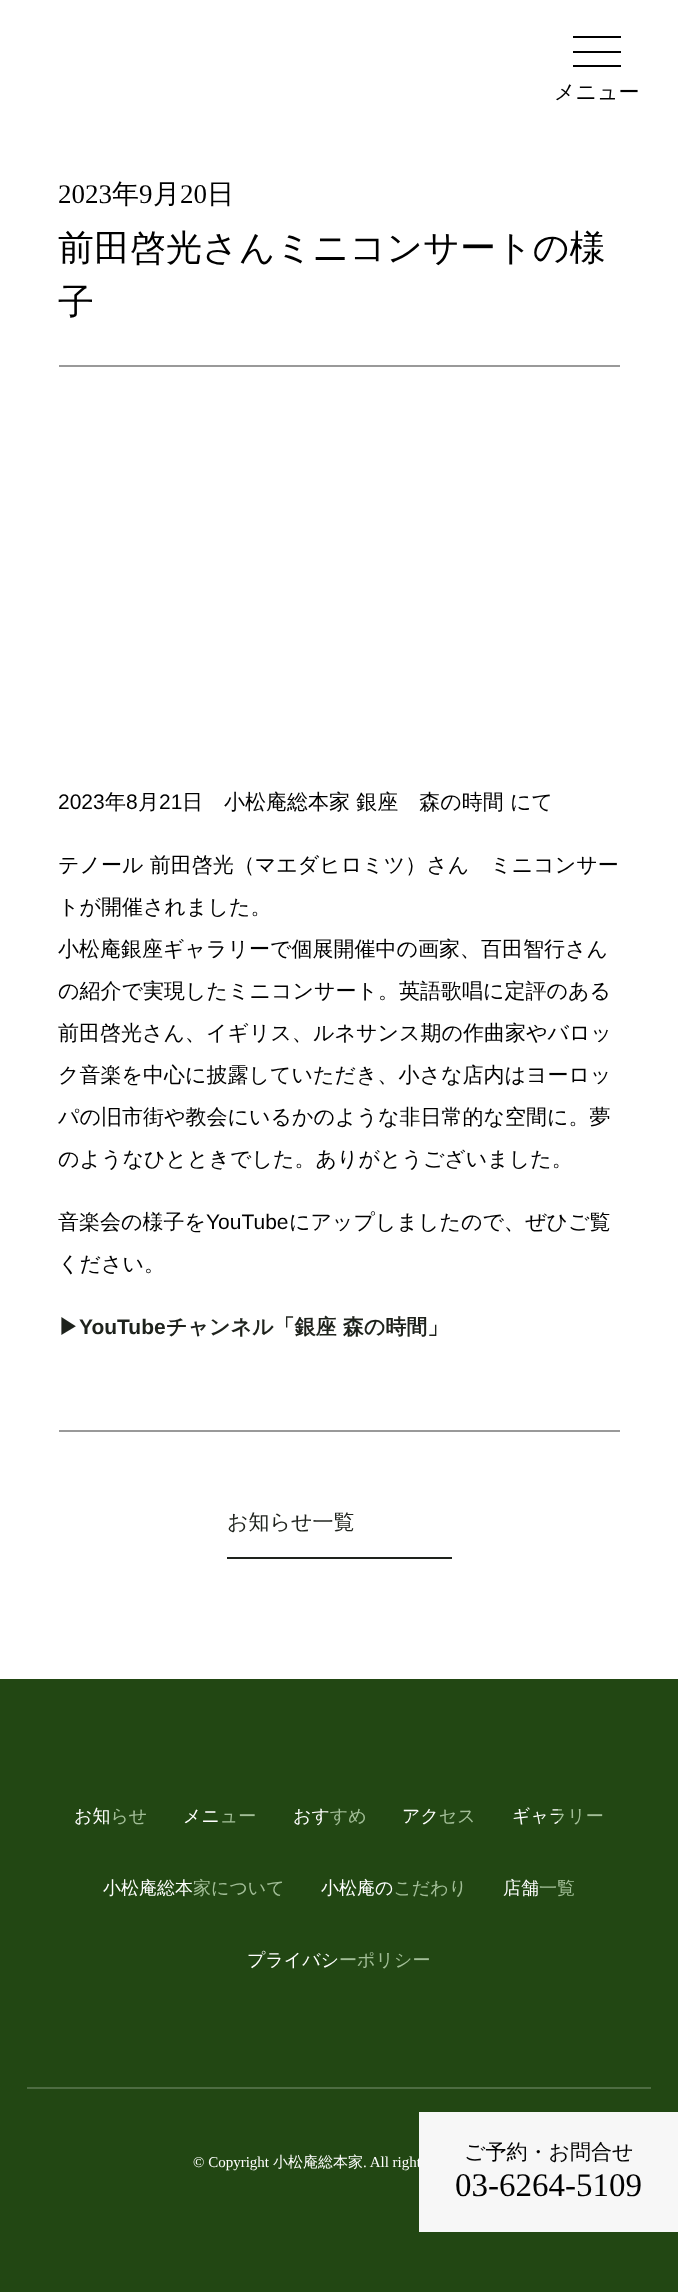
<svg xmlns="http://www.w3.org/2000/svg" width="678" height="2292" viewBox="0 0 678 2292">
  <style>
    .t1 { font: 500 21px WenQuanYi Zen Hei; fill: #000; }
    .t2 { font: 27px Liberation Serif; fill: #000; }
    .t3 { font: 500 27px WenQuanYi Zen Hei; fill: #000; }
    .t4 { font: 500 36px WenQuanYi Zen Hei; fill: #000; }
    .t5 { font: 21px Liberation Sans; fill: #000; }
    .t6 { font: bold 21px WenQuanYi Zen Hei; fill: #1e221c; }
    .t7 { font: bold 21px Liberation Sans; fill: #1e221c; }
    .t8 { font: 500 21px WenQuanYi Zen Hei; fill: #1e221c; }
    .t9 { font: 500 18px WenQuanYi Zen Hei; fill: url(#g1); }
    .t10 { font: 500 18px WenQuanYi Zen Hei; fill: url(#g2); }
    .t11 { font: 500 18px WenQuanYi Zen Hei; fill: url(#g3); }
    .t12 { font: 500 18px WenQuanYi Zen Hei; fill: url(#g4); }
    .t13 { font: 500 18px WenQuanYi Zen Hei; fill: url(#g5); }
    .t14 { font: 500 18px WenQuanYi Zen Hei; fill: url(#g6); }
    .t15 { font: 500 18px WenQuanYi Zen Hei; fill: url(#g7); }
    .t16 { font: 500 18px WenQuanYi Zen Hei; fill: url(#g8); }
    .t17 { font: 500 18px WenQuanYi Zen Hei; fill: url(#g9); }
    .t18 { font: 15px Liberation Serif; fill: #fff; }
    .t19 { font: 500 15px WenQuanYi Zen Hei; fill: #fff; }
    .t20 { font: 33px Liberation Serif; fill: #000; }
  </style>
  <defs>
    <linearGradient id="g1" gradientUnits="userSpaceOnUse" x1="56" y1="1816" x2="165" y2="1816"><stop offset="0" stop-color="#fff"/><stop offset="0.5" stop-color="#fff"/><stop offset="0.5" stop-color="#a2be97"/></linearGradient>
    <linearGradient id="g2" gradientUnits="userSpaceOnUse" x1="165" y1="1816" x2="275" y2="1816"><stop offset="0" stop-color="#fff"/><stop offset="0.5" stop-color="#fff"/><stop offset="0.5" stop-color="#a2be97"/></linearGradient>
    <linearGradient id="g3" gradientUnits="userSpaceOnUse" x1="275" y1="1816" x2="384" y2="1816"><stop offset="0" stop-color="#fff"/><stop offset="0.5" stop-color="#fff"/><stop offset="0.5" stop-color="#a2be97"/></linearGradient>
    <linearGradient id="g4" gradientUnits="userSpaceOnUse" x1="384" y1="1816" x2="494" y2="1816"><stop offset="0" stop-color="#fff"/><stop offset="0.5" stop-color="#fff"/><stop offset="0.5" stop-color="#a2be97"/></linearGradient>
    <linearGradient id="g5" gradientUnits="userSpaceOnUse" x1="494" y1="1816" x2="622" y2="1816"><stop offset="0" stop-color="#fff"/><stop offset="0.5" stop-color="#fff"/><stop offset="0.5" stop-color="#a2be97"/></linearGradient>
    <linearGradient id="g6" gradientUnits="userSpaceOnUse" x1="85" y1="1888" x2="303" y2="1888"><stop offset="0" stop-color="#fff"/><stop offset="0.5" stop-color="#fff"/><stop offset="0.5" stop-color="#a2be97"/></linearGradient>
    <linearGradient id="g7" gradientUnits="userSpaceOnUse" x1="303" y1="1888" x2="485" y2="1888"><stop offset="0" stop-color="#fff"/><stop offset="0.5" stop-color="#fff"/><stop offset="0.5" stop-color="#a2be97"/></linearGradient>
    <linearGradient id="g8" gradientUnits="userSpaceOnUse" x1="485" y1="1888" x2="593" y2="1888"><stop offset="0" stop-color="#fff"/><stop offset="0.5" stop-color="#fff"/><stop offset="0.5" stop-color="#a2be97"/></linearGradient>
    <linearGradient id="g9" gradientUnits="userSpaceOnUse" x1="229" y1="1960" x2="449" y2="1960"><stop offset="0" stop-color="#fff"/><stop offset="0.5" stop-color="#fff"/><stop offset="0.5" stop-color="#a2be97"/></linearGradient>
  </defs>
  <rect width="100%" height="100%" fill="#fff"/>
  <rect x="573" y="36" width="48" height="2" fill="#000"/>
  <rect x="573" y="51" width="48" height="2" fill="#000"/>
  <rect x="573" y="65" width="48" height="2" fill="#000"/>
  <text x="554" y="99" class="t1">メニュー</text>
  <rect x="59" y="1430" width="561" height="2" fill="#999"/>
  <rect x="59" y="365" width="561" height="2" fill="#999"/>
  <text x="58" y="203" class="t2">2023</text>
  <text x="112" y="203" class="t3">年</text>
  <text x="139" y="203" class="t2">9</text>
  <text x="153" y="203" class="t3">月</text>
  <text x="180" y="203" class="t2">20</text>
  <text x="207" y="203" class="t3">日</text>
  <text x="58" y="260" class="t4">前田啓光さんミニコンサートの様</text>
  <text x="58" y="314" class="t4">子</text>
  <text x="58" y="809" class="t5">2023</text>
  <text x="105" y="809" class="t1">年</text>
  <text x="126" y="809" class="t5">8</text>
  <text x="138" y="809" class="t1">月</text>
  <text x="159" y="809" class="t5">21</text>
  <text x="182" y="809" class="t1">日　小松庵総本家 銀座　森の時間 にて</text>
  <text x="58" y="872" class="t1">テノール 前田啓光（マエダヒロミツ）さん　ミニコンサー</text>
  <text x="58" y="914" class="t1">トが開催されました。</text>
  <text x="58" y="956" class="t1">小松庵銀座ギャラリーで個展開催中の画家、百田智行さん</text>
  <text x="58" y="998" class="t1">の紹介で実現したミニコンサート。英語歌唱に定評のある</text>
  <text x="58" y="1040" class="t1">前田啓光さん、イギリス、ルネサンス期の作曲家やバロッ</text>
  <text x="58" y="1082" class="t1">ク音楽を中心に披露していただき、小さな店内はヨーロッ</text>
  <text x="58" y="1124" class="t1">パの旧市街や教会にいるかのような非日常的な空間に。夢</text>
  <text x="58" y="1166" class="t1">のようなひとときでした。ありがとうございました。</text>
  <text x="58" y="1229" class="t1">音楽会の様子を</text>
  <text x="206" y="1229" class="t5">YouTube</text>
  <text x="289" y="1229" class="t1">にアップしましたので、ぜひご覧</text>
  <text x="58" y="1271" class="t1">ください。</text>
  <text x="58" y="1334" class="t6">▶︎</text>
  <text x="79" y="1334" class="t7">YouTube</text>
  <text x="166" y="1334" class="t6">チャンネル「銀座 森の時間」</text>
  <rect x="227" y="1557" width="225" height="2" fill="#1e221c"/>
  <text x="227" y="1529" class="t8">お知らせ一覧</text>
  <rect x="0" y="1679" width="678" height="613" fill="#224713"/>
  <rect x="27" y="2087" width="624" height="2" fill="#4e6c42"/>
  <text x="74" y="1822" class="t9">お知らせ</text>
  <text x="183" y="1822" class="t10">メニュー</text>
  <text x="293" y="1822" class="t11">おすすめ</text>
  <text x="402" y="1822" class="t12">アクセス</text>
  <text x="512" y="1822" class="t13">ギャラリー</text>
  <text x="103" y="1894" class="t14">小松庵総本家について</text>
  <text x="321" y="1894" class="t15">小松庵のこだわり</text>
  <text x="503" y="1894" class="t16">店舗一覧</text>
  <text x="247" y="1966" class="t17">プライバシーポリシー</text>
  <text x="193" y="2167" class="t18">© Copyright</text>
  <text x="273" y="2167" class="t19">小松庵総本家</text>
  <text x="363" y="2167" class="t18">. All right</text>
  <rect x="419" y="2112" width="259" height="120" fill="#f7f7f7"/>
  <text x="464" y="2159" class="t1">ご予約・お問合せ</text>
  <text x="455" y="2196" class="t20">03-6264-5109</text>
</svg>
